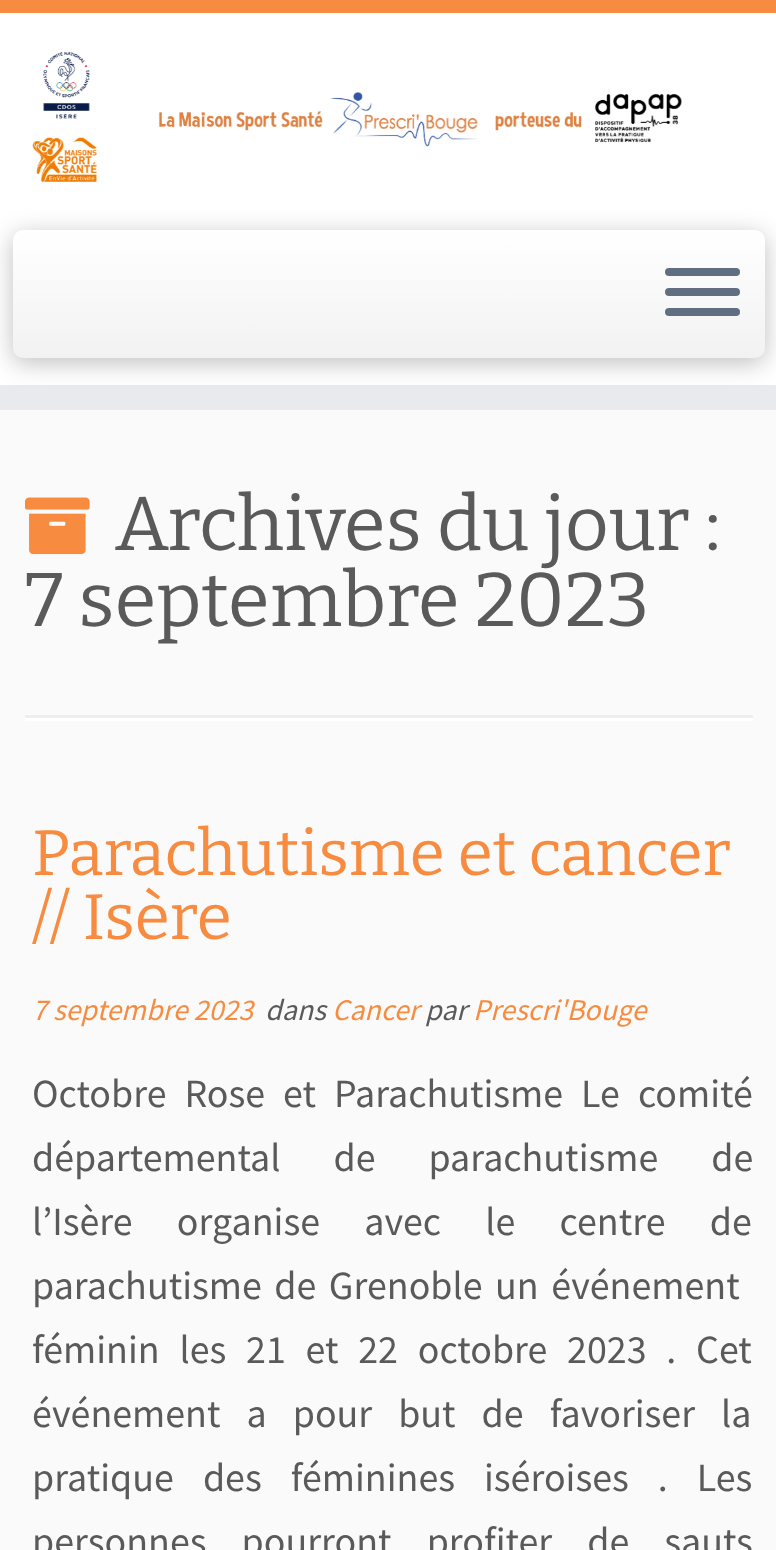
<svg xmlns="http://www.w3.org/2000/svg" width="776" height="1550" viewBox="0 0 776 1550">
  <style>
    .t1 { font: 100 76px Bitter; fill: #5a5a5a; }
    .t2 { font: 100 64px Bitter; fill: #f78c40; }
    .t3 { font: italic 30px Source Sans Pro; fill: #f78c40; }
    .t4 { font: italic 30px Source Sans Pro; fill: #5a5a5a; }
    .t5 { font: 40px Source Sans Pro; fill: #5a5a5a; }
  </style>
  <defs>
    <linearGradient id="g1" gradientUnits="userSpaceOnUse" x1="389" y1="230" x2="389" y2="358"><stop offset="0" stop-color="#fff"/><stop offset="1" stop-color="#f2f2f2"/></linearGradient>
  </defs>
  <rect width="100%" height="100%" fill="#fafafa"/>
  <rect x="0" y="13" width="776" height="372" fill="#fff"/>
  <rect x="0" y="0" width="776" height="13" fill="#f78c40"/>
  <rect x="0" y="385" width="776" height="25" fill="#e9eaee"/>
  <image x="31" y="51" width="651" height="132" href="images/1.png"/>
  <rect x="13" y="235" width="752" height="128" rx="10" fill="#00000040" filter="blur(12.5px)"/>
  <rect x="13" y="230" width="752" height="128" rx="10" fill="url(#g1)"/>
  <rect x="665" y="268" width="75" height="8" rx="4" fill="#5f6f81"/>
  <rect x="665" y="288" width="75" height="8" rx="4" fill="#5f6f81"/>
  <rect x="665" y="308" width="75" height="8" rx="4" fill="#5f6f81"/>
  <image x="25" y="497" width="65" height="58" href="images/2.png"/>
  <text x="115" y="550" class="t1">Archives du jour :</text>
  <text x="25" y="626" class="t1">7 septembre 2023</text>
  <rect x="25" y="715" width="728" height="3" fill="#eee"/>
  <rect x="25" y="718" width="728" height="3" fill="#fff"/>
  <text x="32" y="875" class="t2">Parachutisme et cancer</text>
  <text x="32" y="939" class="t2">// Isère</text>
  <text x="32" y="1020" class="t3">7 septembre 2023</text>
  <text x="265" y="1020" class="t4">dans</text>
  <text x="332" y="1020" class="t3">Cancer</text>
  <text x="425" y="1020" class="t4">par</text>
  <text x="473" y="1020" class="t3">Prescri'Bouge</text>
  <text x="32" y="1107" word-spacing="10" class="t5">Octobre Rose et Parachutisme Le comité</text>
  <text x="32" y="1171" word-spacing="45" class="t5">départemental de parachutisme de</text>
  <text x="32" y="1235" word-spacing="36.25" class="t5">l’Isère organise avec le centre de</text>
  <text x="32" y="1299" word-spacing="4.5" class="t5">parachutisme de Grenoble un événement</text>
  <text x="32" y="1363" word-spacing="11.75" class="t5">féminin les 21 et 22 octobre 2023 . Cet</text>
  <text x="32" y="1427" word-spacing="18" class="t5">événement a pour but de favoriser la</text>
  <text x="32" y="1491" word-spacing="21" class="t5">pratique des féminines iséroises . Les</text>
  <text x="32" y="1555" word-spacing="27" class="t5">personnes pourront profiter de sauts</text>
</svg>
